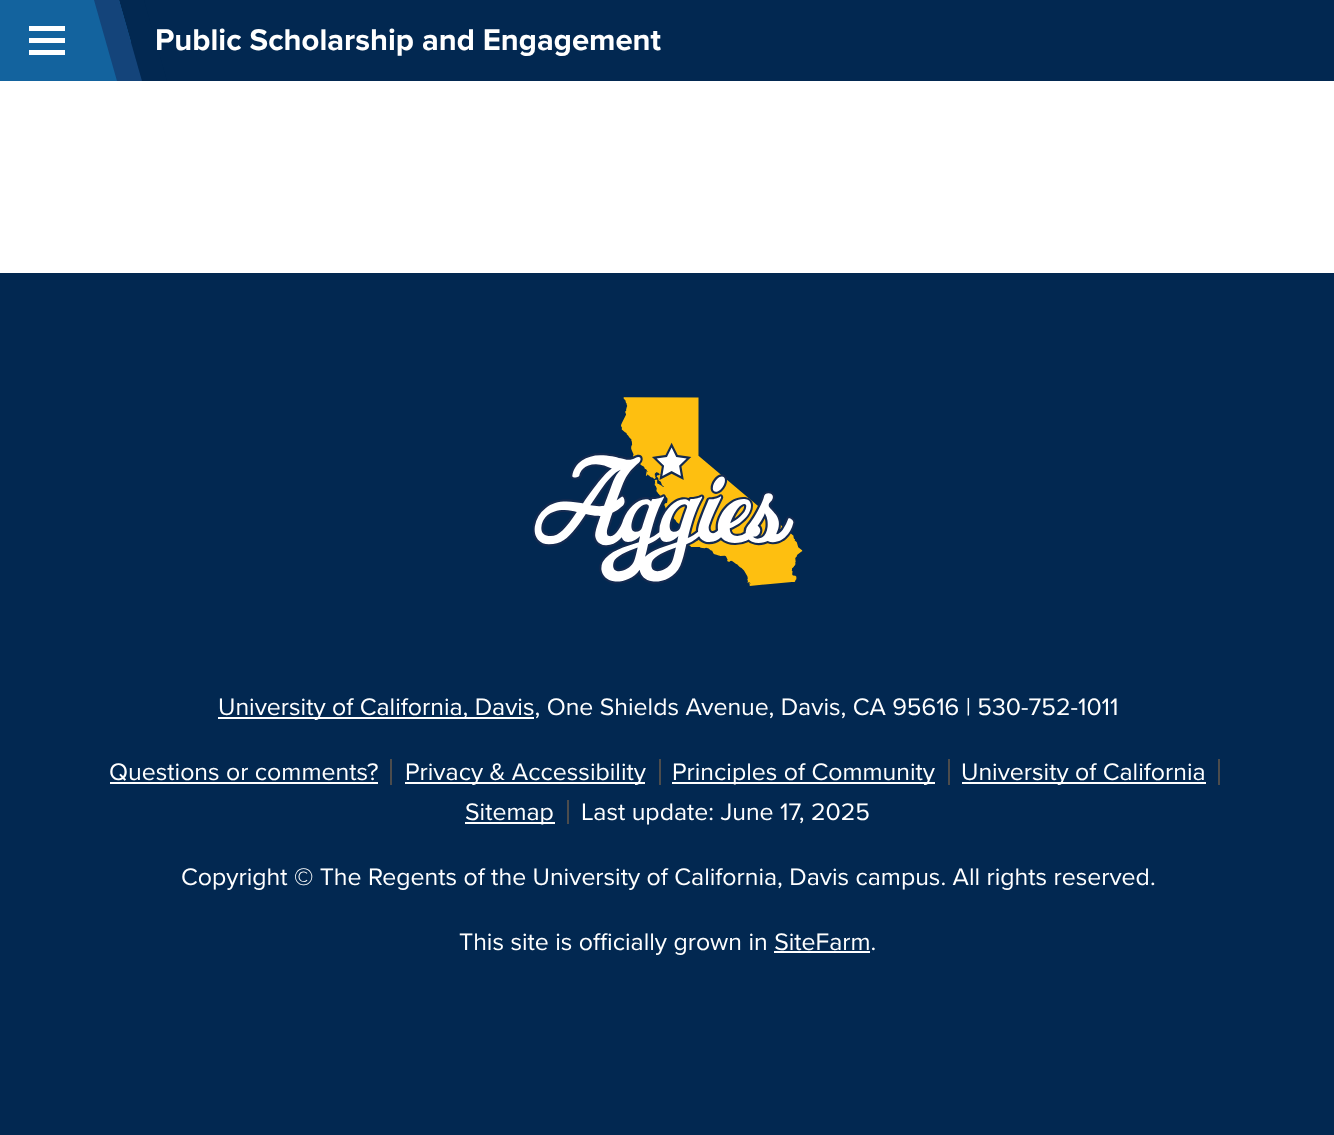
<svg xmlns="http://www.w3.org/2000/svg" width="1334" height="1135" viewBox="0 0 1334 1135">
  <style>
    .t1 { font: bold 31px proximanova; fill: #fff; }
    .t2 { font: 24.85px proximanova; fill: #fff; }
  </style>
  <rect width="100%" height="100%" fill="#fff"/>
  <rect x="131" y="0" width="1203" height="81" fill="#022851"/>
  <rect x="0" y="0" width="131" height="81" fill="#13639e"/>
  <rect x="29" y="38" width="36" height="5" fill="#fff"/>
  <rect x="29" y="26" width="36" height="5" fill="#fff"/>
  <rect x="29" y="50" width="36" height="5" fill="#fff"/>
  <path d="M119 0H144L167 81H142Z" fill="#022851"/>
  <path d="M94 0H119L142 81H117Z" fill="#14447a"/>
  <text x="155" y="50" class="t1">Public Scholarship and Engagement</text>
  <rect x="0" y="273" width="1334" height="862" fill="#022851"/>
  <image x="533" y="397" width="270" height="189" href="images/1.png"/>
  <rect x="218" y="717" width="316" height="2" fill="#fff"/>
  <text x="218" y="715" class="t2">University of California, Davis, One Shields Avenue, Davis, CA 95616 | 530-752-1011</text>
  <rect x="390" y="759" width="2" height="26" fill="#4c4c4c"/>
  <text x="109" y="780" class="t2">Questions or comments?</text>
  <rect x="110" y="782" width="268" height="2" fill="#fff"/>
  <rect x="659" y="759" width="2" height="26" fill="#4c4c4c"/>
  <rect x="405" y="782" width="240" height="2" fill="#fff"/>
  <text x="405" y="780" class="t2">Privacy &amp; Accessibility</text>
  <rect x="948" y="759" width="2" height="26" fill="#4c4c4c"/>
  <rect x="672" y="782" width="263" height="2" fill="#fff"/>
  <text x="672" y="780" class="t2">Principles of Community</text>
  <rect x="1218" y="759" width="2" height="26" fill="#4c4c4c"/>
  <rect x="962" y="782" width="244" height="2" fill="#fff"/>
  <text x="961" y="780" class="t2">University of California</text>
  <rect x="567" y="800" width="2" height="24" fill="#4c4c4c"/>
  <rect x="465" y="822" width="90" height="2" fill="#fff"/>
  <text x="465" y="820" class="t2">Sitemap</text>
  <text x="581" y="820" class="t2">Last update: June 17, 2025</text>
  <text x="181" y="885" class="t2">Copyright © The Regents of the University of California, Davis campus. All rights reserved.</text>
  <text x="459" y="950" class="t2">This site is officially grown in SiteFarm.</text>
  <rect x="774" y="951" width="96" height="2" fill="#fff"/>
</svg>
